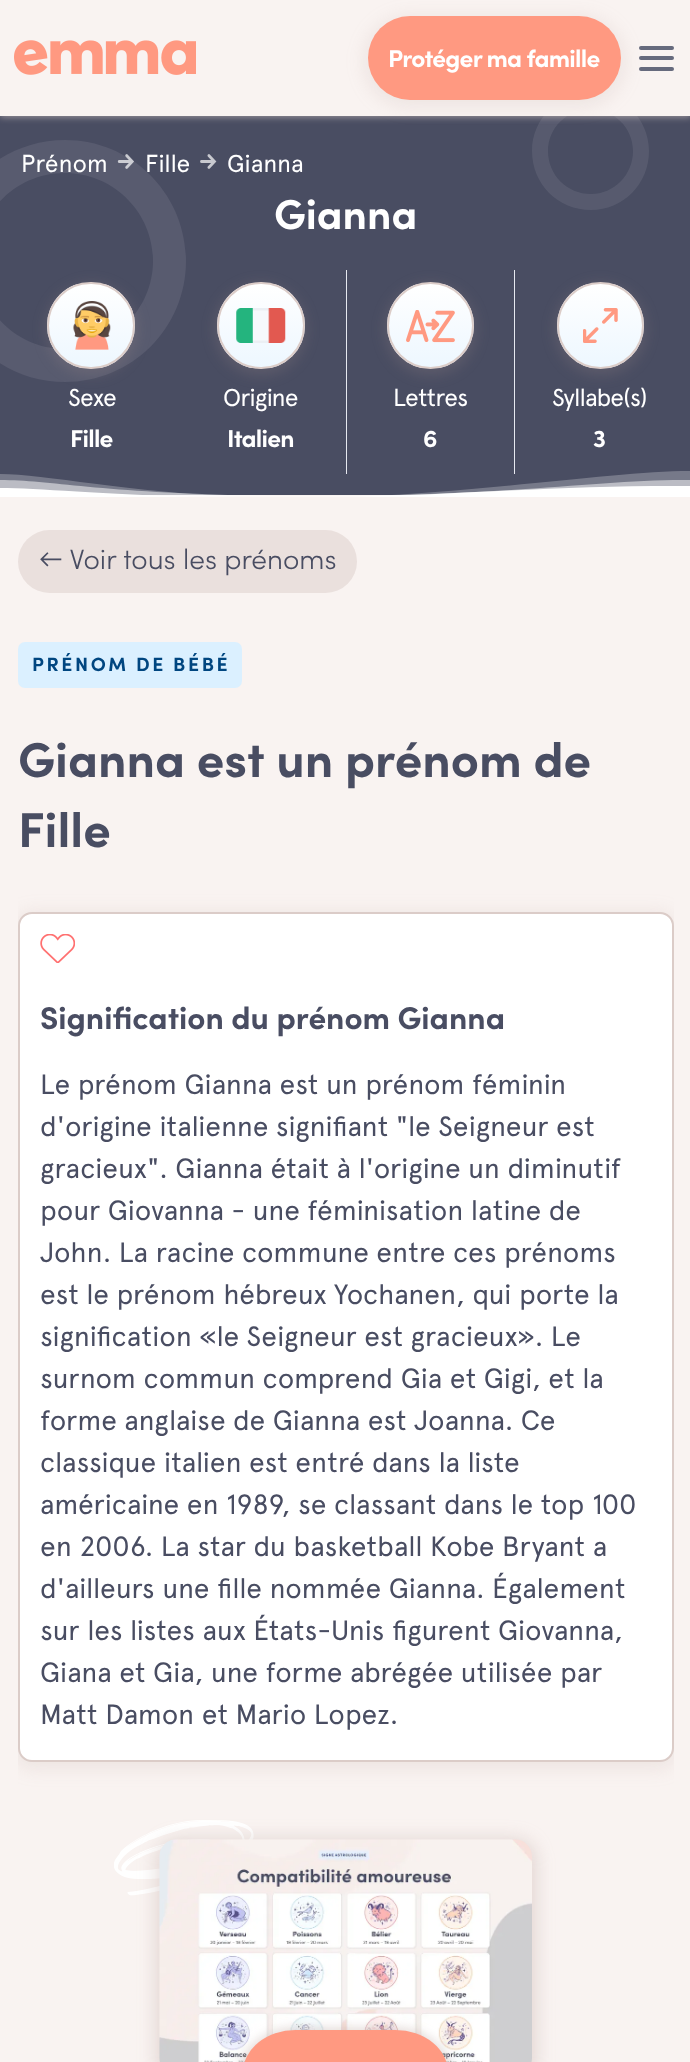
<svg xmlns="http://www.w3.org/2000/svg" width="690" height="2062" viewBox="0 0 690 2062">
  <style>
    .t1 { font: bold 24.5px Sofia; letter-spacing: -0.75px; fill: #fff; }
    .t2 { font: 24.5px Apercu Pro; fill: #fff; }
    .t3 { font: bold 42px Sofia; fill: #fff; }
    .t4 { font: 24.5px Apercu Pro; letter-spacing: -0.75px; fill: #fff; }
    .t5 { font: 300 28px Sofia; fill: #494d62; }
    .t6 { font: bold 19.25px Sofia; letter-spacing: 2.6px; fill: #004680; }
    .t7 { font: bold 49px Sofia; fill: #494d62; }
    .t8 { font: bold 31.5px Sofia; fill: #494d62; }
    .t9 { font: 28px Apercu Pro; fill: #494d62; }
  </style>
  <defs>
    <clipPath id="clip1"><rect x="47" y="282" width="88" height="87" rx="43.5"/></clipPath>
    <linearGradient id="g1" gradientUnits="userSpaceOnUse" x1="91" y1="284" x2="91" y2="368"><stop offset="0" stop-color="#fff"/><stop offset="1" stop-color="#edf7ff"/></linearGradient>
    <clipPath id="clip2"><rect x="0" y="471" width="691" height="26"/></clipPath>
    <clipPath id="clip3"><rect x="177" y="268" width="170" height="206"/></clipPath>
    <clipPath id="clip4"><rect x="217" y="282" width="88" height="87" rx="43.5"/></clipPath>
    <linearGradient id="g2" gradientUnits="userSpaceOnUse" x1="261" y1="284" x2="261" y2="368"><stop offset="0" stop-color="#fff"/><stop offset="1" stop-color="#edf7ff"/></linearGradient>
    <clipPath id="clip5"><rect x="347" y="268" width="168" height="206"/></clipPath>
    <clipPath id="clip6"><rect x="387" y="282" width="87" height="87" rx="43.5"/></clipPath>
    <linearGradient id="g3" gradientUnits="userSpaceOnUse" x1="431" y1="284" x2="431" y2="368"><stop offset="0" stop-color="#fff"/><stop offset="1" stop-color="#edf7ff"/></linearGradient>
    <clipPath id="clip7"><rect x="557" y="282" width="87" height="87" rx="43.5"/></clipPath>
    <linearGradient id="g4" gradientUnits="userSpaceOnUse" x1="600" y1="284" x2="600" y2="368"><stop offset="0" stop-color="#fff"/><stop offset="1" stop-color="#edf7ff"/></linearGradient>
    <clipPath id="clip8"><rect x="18" y="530" width="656" height="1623"/></clipPath>
  </defs>
  <rect width="100%" height="100%" fill="#f9f3f1"/>
  <rect x="0" y="116" width="690" height="379" fill="#494d62"/>
  <path d="M591 210C623 210 649 184 649 151C649 119 623 93 591 93C558 93 532 119 532 151C532 184 558 210 591 210ZM591 194C567 194 548 175 548 151C548 128 567 109 591 109C614 109 633 128 633 151C633 175 614 194 591 194Z" fill="#ffffff14" fill-rule="evenodd"/>
  <rect x="0" y="2" width="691" height="115" fill="#dbccc899" filter="blur(3.5px)"/>
  <rect x="0" y="0" width="690" height="116" fill="#f9f3f1"/>
  <image x="14" y="40" width="182" height="35" href="images/1.png"/>
  <rect x="364" y="16" width="261" height="91" rx="45.5" fill="#af958f26" filter="blur(9px)"/>
  <rect x="368" y="16" width="253" height="84" rx="42" fill="#ff9981"/>
  <text x="388" y="67" class="t1">Protéger ma famille</text>
  <rect x="639" y="46" width="35" height="4" rx="2" fill="#666a7d"/>
  <rect x="639" y="56" width="35" height="4" rx="2" fill="#666a7d"/>
  <rect x="639" y="67" width="35" height="4" rx="2" fill="#666a7d"/>
  <path d="M65 382C132 382 186 328 186 261C186 194 132 140 65 140C-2 140-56 194-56 261C-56 328-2 382 65 382ZM65 349C16 349-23 309-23 261C-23 212 16 173 65 173C113 173 153 212 153 261C153 309 113 349 65 349Z" fill="#585b6f" fill-rule="evenodd"/>
  <text x="21" y="172" class="t2">Prénom</text>
  <image x="117" y="154" width="17" height="15" href="images/2.png"/>
  <text x="145" y="172" class="t2">Fille</text>
  <image x="200" y="154" width="17" height="15" href="images/3.png"/>
  <text x="227" y="172" class="t2">Gianna</text>
  <text x="274" y="229" class="t3">Gianna</text>
  <rect x="46" y="284" width="91" height="91" rx="45.5" fill="#af958f33" filter="blur(7px)"/>
  <g clip-path="url(#clip1)">
    <rect x="47" y="284" width="88" height="84" fill="url(#g1)"/>
  </g>
  <rect x="48" y="283" width="86" height="85" rx="42.5" fill="none" stroke="#dbccc8" stroke-width="2"/>
  <image x="73" y="301" width="38" height="49" href="images/4.png"/>
  <text x="68" y="406" class="t4">Sexe</text>
  <text x="70" y="447" class="t1">Fille</text>
  <g clip-path="url(#clip2)">
    <path d="M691 480V498H0V480C56 480 110 496 315 496C519 496 600 479 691 480Z" fill="#ffffff80" fill-rule="evenodd"/>
    <path d="M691 471V498H0V474C51 474 150 498 299 498C448 498 609 471 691 471Z" fill="#ffffff40" fill-rule="evenodd"/>
  </g>
  <g clip-path="url(#clip3)">
    <path d="M179 474V476H348V270H346V474Z" fill="#e6e8f0"/>
  </g>
  <rect x="215" y="284" width="91" height="91" rx="45.5" fill="#af958f33" filter="blur(7px)"/>
  <g clip-path="url(#clip4)">
    <rect x="217" y="284" width="88" height="84" fill="url(#g2)"/>
  </g>
  <rect x="218" y="283" width="86" height="85" rx="42.5" fill="none" stroke="#dbccc8" stroke-width="2"/>
  <image x="236" y="308" width="50" height="35" href="images/5.png"/>
  <text x="223" y="406" class="t4">Origine</text>
  <text x="227" y="447" class="t1">Italien</text>
  <g clip-path="url(#clip5)">
    <path d="M348 474V476H516V270H514V474Z" fill="#e6e8f0"/>
  </g>
  <rect x="385" y="284" width="91" height="91" rx="45.5" fill="#af958f33" filter="blur(7px)"/>
  <g clip-path="url(#clip6)">
    <rect x="387" y="284" width="87" height="84" fill="url(#g3)"/>
  </g>
  <circle cx="430.5" cy="325.5" r="42.5" fill="none" stroke="#dbccc8" stroke-width="2"/>
  <image x="406" y="310" width="49" height="33" href="images/6.png"/>
  <text x="393" y="406" class="t4">Lettres</text>
  <text x="423" y="447" class="t1">6</text>
  <rect x="555" y="284" width="91" height="91" rx="45.5" fill="#af958f33" filter="blur(7px)"/>
  <g clip-path="url(#clip7)">
    <rect x="557" y="284" width="87" height="84" fill="url(#g4)"/>
  </g>
  <circle cx="600.5" cy="325.5" r="42.5" fill="none" stroke="#dbccc8" stroke-width="2"/>
  <image x="583" y="308" width="35" height="35" href="images/7.png"/>
  <text x="552" y="406" class="t4">Syllabe(s)</text>
  <text x="593" y="447" class="t1">3</text>
  <g clip-path="url(#clip2)">
    <path d="M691 486V498H0V488C46 488 134 498 278 498C422 498 545 485 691 486Z" fill="#fff" fill-rule="evenodd"/>
  </g>
  <rect x="18" y="530" width="339" height="63" rx="31.5" fill="#eae0dd"/>
  <text x="39" y="569" class="t5">← Voir tous les prénoms</text>
  <rect x="18" y="642" width="224" height="46" rx="7" fill="#dbf0ff"/>
  <text x="32" y="671" class="t6">PRÉNOM DE BÉBÉ</text>
  <text x="18" y="777" class="t7">Gianna est un prénom de</text>
  <text x="18" y="847" class="t7">Fille</text>
  <g clip-path="url(#clip8)">
    <rect x="14" y="912" width="663" height="857" rx="18" fill="#af958f26" filter="blur(9px)"/>
  </g>
  <rect x="19" y="913" width="654" height="848" rx="13" fill="#fff" stroke="#dbccc8" stroke-width="2"/>
  <image x="40" y="934" width="35" height="29" href="images/8.png"/>
  <text x="40" y="1029" class="t8">Signification du prénom Gianna</text>
  <text x="40" y="1094" class="t9">Le prénom Gianna est un prénom féminin</text>
  <text x="40" y="1136" class="t9">d'origine italienne signifiant "le Seigneur est</text>
  <text x="40" y="1178" class="t9">gracieux". Gianna était à l'origine un diminutif</text>
  <text x="40" y="1220" class="t9">pour Giovanna - une féminisation latine de</text>
  <text x="40" y="1262" class="t9">John. La racine commune entre ces prénoms</text>
  <text x="40" y="1304" class="t9">est le prénom hébreux Yochanen, qui porte la</text>
  <text x="40" y="1346" class="t9">signification «le Seigneur est gracieux». Le</text>
  <text x="40" y="1388" class="t9">surnom commun comprend Gia et Gigi, et la</text>
  <text x="40" y="1430" class="t9">forme anglaise de Gianna est Joanna. Ce</text>
  <text x="40" y="1472" class="t9">classique italien est entré dans la liste</text>
  <text x="40" y="1514" class="t9">américaine en 1989, se classant dans le top 100</text>
  <text x="40" y="1556" class="t9">en 2006. La star du basketball Kobe Bryant a</text>
  <text x="40" y="1598" class="t9">d'ailleurs une fille nommée Gianna. Également</text>
  <text x="40" y="1640" class="t9">sur les listes aux États-Unis figurent Giovanna,</text>
  <text x="40" y="1682" class="t9">Giana et Gia, une forme abrégée utilisée par</text>
  <text x="40" y="1724" class="t9">Matt Damon et Mario Lopez.</text>
  <image x="114" y="1820" width="140" height="76" href="images/9.png"/>
  <rect x="156" y="1839" width="380" height="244" rx="21" fill="#af958f4d" filter="blur(9px)"/>
  <image x="159" y="1839" width="373" height="223" href="images/10.png"/>
  <rect x="236" y="2027" width="219" height="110" rx="59.5" fill="#af958f4d" filter="blur(5px)"/>
  <rect x="243" y="2030" width="205" height="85" rx="52.5" fill="#ff9981"/>
</svg>
